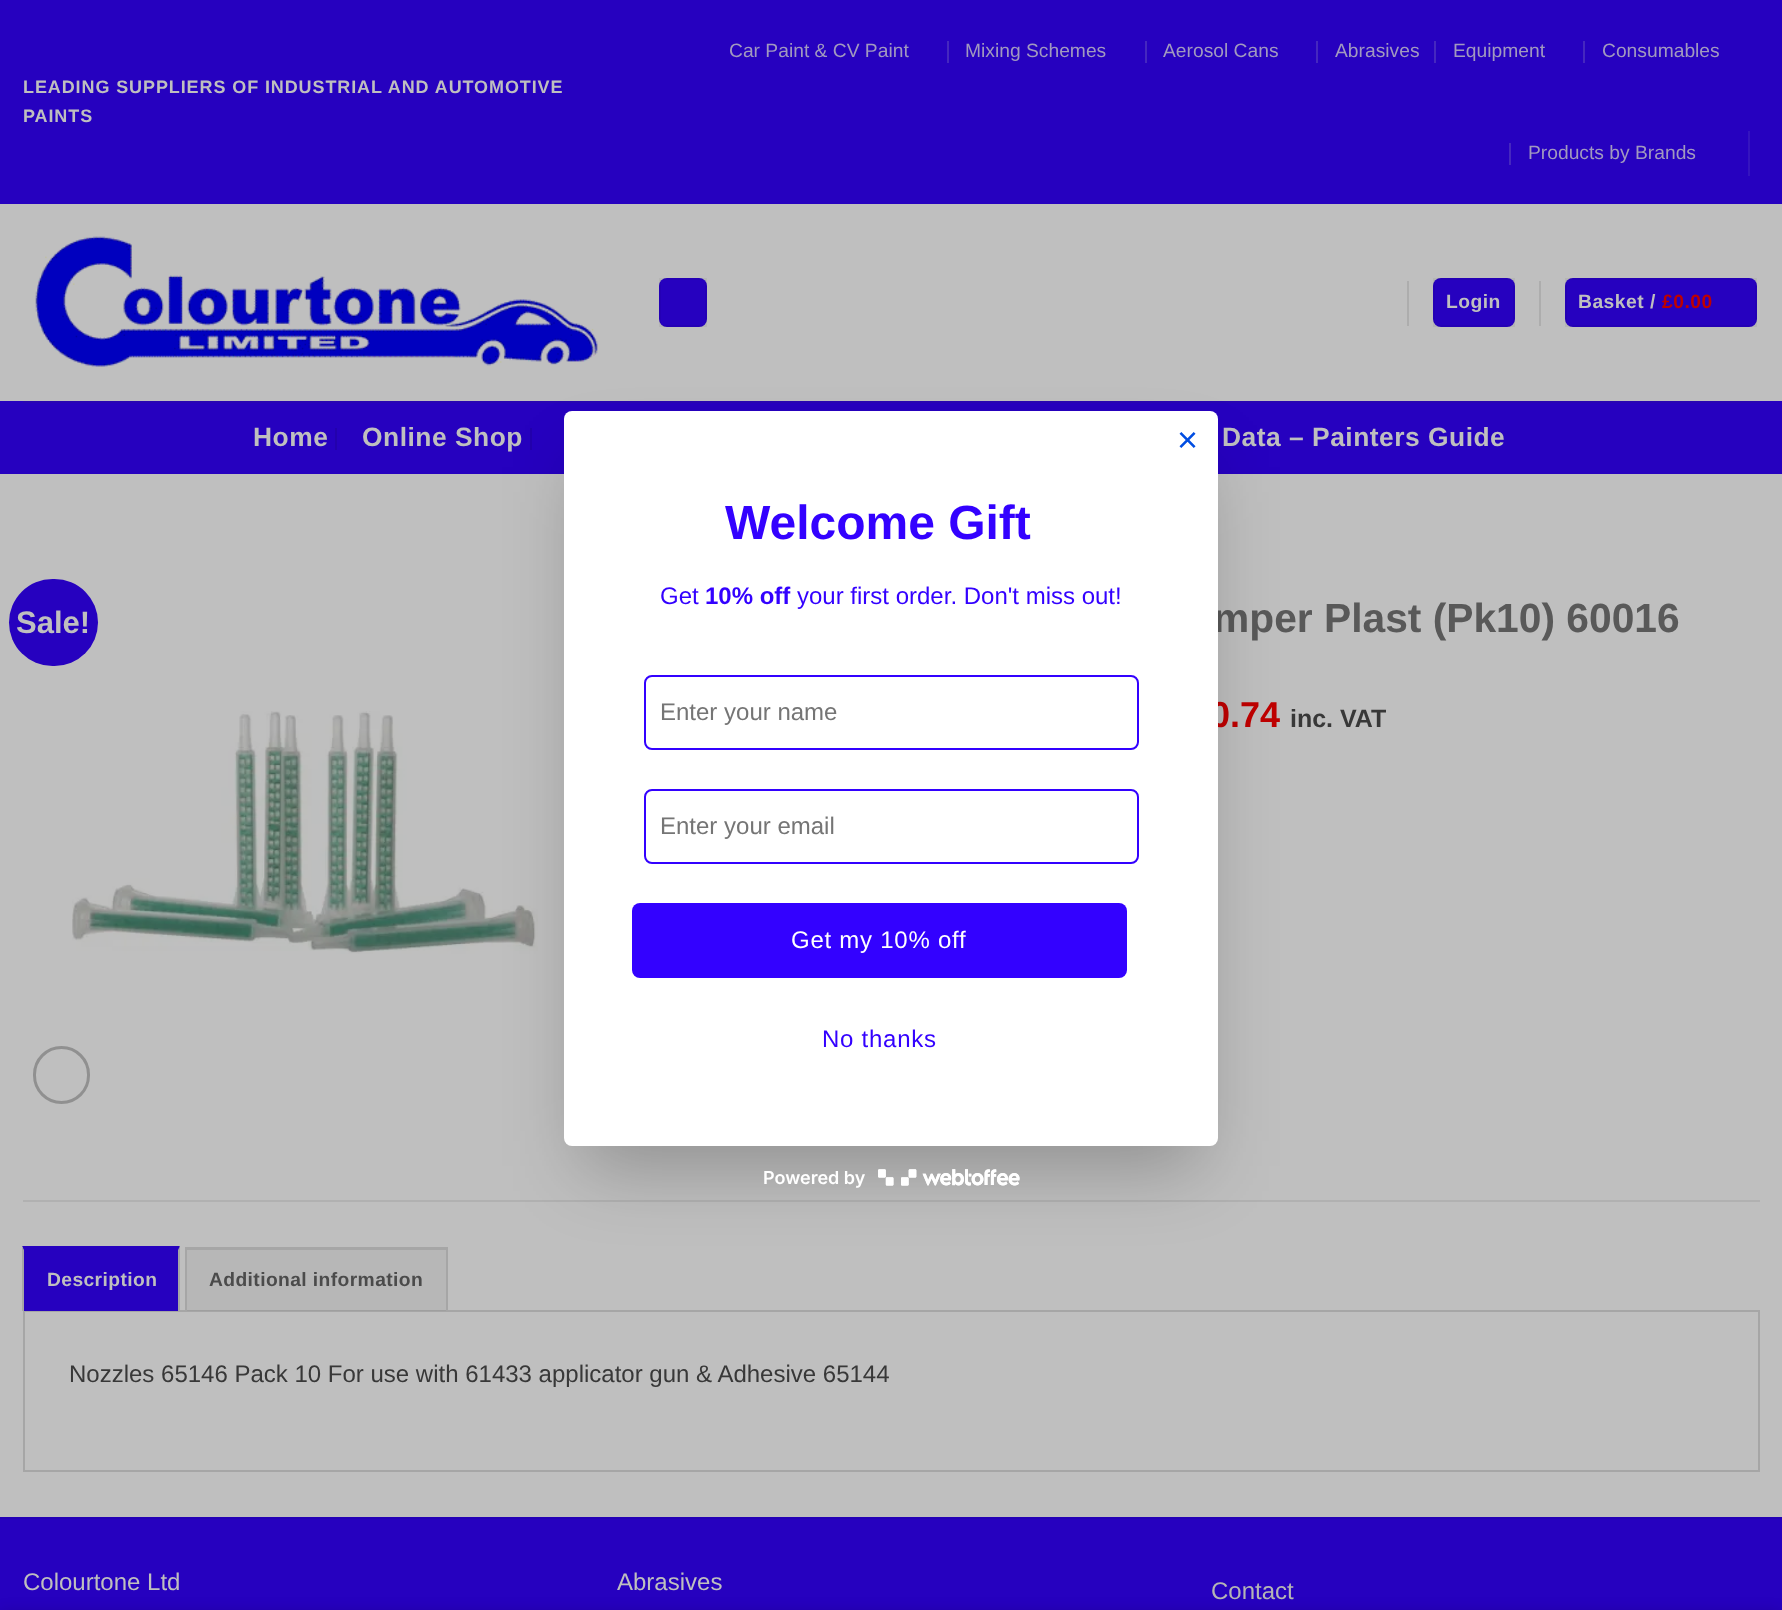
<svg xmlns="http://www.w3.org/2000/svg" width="1782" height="1610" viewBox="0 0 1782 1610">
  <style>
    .t1 { font: bold 18px Liberation Sans; letter-spacing: 0.9px; fill: #bfbfbf; }
    .t2 { font: 19.25px Liberation Sans; fill: #a199bf; }
    .t3 { font: bold 19.25px Liberation Sans; letter-spacing: 0.5px; fill: #bfbfbf; }
    .t4 { font: bold 19.25px Liberation Sans; letter-spacing: 0.5px; fill: #bf0000; }
    .t5 { font: bold 26.4px Liberation Sans; letter-spacing: 0.5px; fill: #bfbfbf; }
    .t6 { font: bold 31px Liberation Sans; fill: #bfbfbf; }
    .t7 { font: bold 40.75px Liberation Sans; fill: #595959; }
    .t8 { font: bold 36px Liberation Sans; fill: #bf0000; }
    .t9 { font: bold 25px Liberation Sans; fill: #383838; }
    .t10 { font: bold 19.25px Liberation Sans; letter-spacing: 0.4px; fill: #bfbfbf; }
    .t11 { font: bold 19.25px Liberation Sans; letter-spacing: 0.4px; fill: #4b4b4b; }
    .t12 { font: 24px Liberation Sans; fill: #383838; }
    .t13 { font: 24px Liberation Sans; fill: #bfbfbf; }
    .t14 { font: 24px Liberation Sans; fill: #b5b5b5; }
    .t15 { font: 36px Liberation Sans; fill: #004de2; }
    .t16 { font: bold 48px Liberation Sans; fill: #3301ff; }
    .t17 { font: 24px Liberation Sans; fill: #3301ff; }
    .t18 { font: bold 24px Liberation Sans; fill: #3301ff; }
    .t19 { font: 24px Liberation Sans; fill: #757575; }
    .t20 { font: 24px Liberation Sans; letter-spacing: 0.75px; fill: #fff; }
    .t21 { font: 24px Liberation Sans; letter-spacing: 0.75px; fill: #3301ff; }
    .t22 { font: 600 18px Inter; fill: #fff; }
  </style>
  <rect width="100%" height="100%" fill="#bfbfbf"/>
  <rect x="0" y="0" width="1782" height="204" fill="#2601bf"/>
  <text x="23" y="93" class="t1">LEADING SUPPLIERS OF INDUSTRIAL AND AUTOMOTIVE</text>
  <text x="23" y="122" class="t1">PAINTS</text>
  <text x="729" y="57" class="t2">Car Paint &amp; CV Paint</text>
  <rect x="947" y="41" width="2" height="22" fill="#4527bf"/>
  <text x="965" y="57" class="t2">Mixing Schemes</text>
  <rect x="1145" y="41" width="2" height="22" fill="#4527bf"/>
  <text x="1163" y="57" class="t2">Aerosol Cans</text>
  <rect x="1316" y="41" width="2" height="22" fill="#4527bf"/>
  <text x="1335" y="57" class="t2">Abrasives</text>
  <rect x="1434" y="41" width="2" height="22" fill="#4527bf"/>
  <text x="1453" y="57" class="t2">Equipment</text>
  <rect x="1583" y="41" width="2" height="22" fill="#4527bf"/>
  <text x="1602" y="57" class="t2">Consumables</text>
  <rect x="1509" y="143" width="2" height="22" fill="#4527bf"/>
  <text x="1528" y="159" class="t2">Products by Brands</text>
  <rect x="1748" y="131" width="2" height="45" fill="#3514bf"/>
  <image x="35" y="236" width="563" height="131" href="images/1.png"/>
  <rect x="659" y="278" width="48" height="49" rx="8" fill="#2601bf"/>
  <rect x="660" y="279" width="46" height="47" fill="none" stroke="#0000000d" stroke-width="2"/>
  <rect x="1407" y="281" width="2" height="45" fill="#adadad"/>
  <rect x="1433" y="278" width="82" height="49" rx="8" fill="#2601bf"/>
  <rect x="1434" y="279" width="80" height="47" fill="none" stroke="#0000000d" stroke-width="2"/>
  <text x="1446" y="308" class="t3">Login</text>
  <rect x="1539" y="281" width="2" height="45" fill="#adadad"/>
  <rect x="1565" y="278" width="192" height="49" rx="8" fill="#2601bf"/>
  <rect x="1566" y="279" width="190" height="47" fill="none" stroke="#0000000d" stroke-width="2"/>
  <text x="1578" y="308" class="t3">Basket /</text>
  <text x="1662" y="308" class="t4">£0.00</text>
  <rect x="0" y="401" width="1782" height="73" fill="#2601bf"/>
  <rect x="23" y="401" width="1737" height="2" fill="#2806b2"/>
  <text x="253" y="446" class="t5">Home</text>
  <rect x="335" y="428" width="2" height="22" fill="#2301ad"/>
  <text x="362" y="446" class="t5">Online Shop</text>
  <rect x="530" y="428" width="2" height="22" fill="#2301ad"/>
  <text x="1222" y="446" class="t5">Data – Painters Guide</text>
  <rect x="9" y="579" width="89" height="87" rx="43.5" fill="#2601bf"/>
  <text x="16" y="633" class="t6">Sale!</text>
  <image x="72" y="711" width="466" height="243" href="images/2.png"/>
  <rect x="34.5" y="1047.5" width="54" height="55" rx="27" fill="none" stroke="#909090" stroke-width="3"/>
  <text x="1213" y="632" class="t7">mper Plast (Pk10) 60016</text>
  <text x="1210" y="727" class="t8">0.74</text>
  <text x="1290" y="727" class="t9">inc. VAT</text>
  <rect x="23" y="1200" width="1737" height="2" fill="#b1b1b1"/>
  <rect x="24" y="1311" width="1735" height="160" fill="none" stroke="#a6a6a6" stroke-width="2"/>
  <rect x="23" y="1247" width="157" height="64" fill="#2601bf"/>
  <path d="M22 1246H180L178 1250H24Z" fill="#2601bf"/>
  <path d="M180 1246V1311H178V1250Z" fill="#a6a6a6"/>
  <path d="M22 1311V1246L24 1250V1311Z" fill="#a6a6a6"/>
  <text x="47" y="1286" class="t10">Description</text>
  <rect x="187" y="1250" width="259" height="61" fill="#0000000a"/>
  <rect x="185" y="1247" width="262" height="3" fill="#a6a6a6"/>
  <rect x="446" y="1247" width="2" height="64" fill="#a6a6a6"/>
  <rect x="185" y="1247" width="2" height="64" fill="#a6a6a6"/>
  <text x="209" y="1286" class="t11">Additional information</text>
  <text x="69" y="1382" class="t12">Nozzles 65146 Pack 10 For use with 61433 applicator gun &amp; Adhesive 65144</text>
  <rect x="0" y="1519" width="1782" height="91" fill="#2601bf"/>
  <rect x="0" y="1517" width="1782" height="2" fill="#2401b6"/>
  <text x="23" y="1590" class="t13">Colourtone Ltd</text>
  <text x="617" y="1590" class="t13">Abrasives</text>
  <text x="1211" y="1599" class="t14">Contact</text>
  <rect x="582" y="467" width="618" height="699" fill="#00000040" filter="blur(37.5px)"/>
  <rect x="564" y="411" width="654" height="735" rx="8" fill="#fff"/>
  <text x="1177" y="452" class="t15">×</text>
  <text x="725" y="539" class="t16">Welcome Gift</text>
  <text x="660" y="604" class="t17">Get</text>
  <text x="705" y="604" class="t18">10% off</text>
  <text x="797" y="604" class="t17">your first order. Don't miss out!</text>
  <rect x="645" y="676" width="493" height="73" rx="7" fill="none" stroke="#3301ff" stroke-width="2"/>
  <text x="660" y="720" class="t19">Enter your name</text>
  <rect x="645" y="790" width="493" height="73" rx="7" fill="none" stroke="#3301ff" stroke-width="2"/>
  <text x="660" y="834" class="t19">Enter your email</text>
  <rect x="632" y="903" width="495" height="75" rx="8" fill="#3301ff"/>
  <text x="791" y="948" class="t20">Get my 10% off</text>
  <text x="822" y="1047" class="t21">No thanks</text>
  <text x="763" y="1184" class="t22">Powered by</text>
  <image x="878" y="1169" width="142" height="17" href="images/3.png"/>
  <rect x="0" y="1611" width="1782" height="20" fill="#00000024" filter="blur(7px)"/>
</svg>
